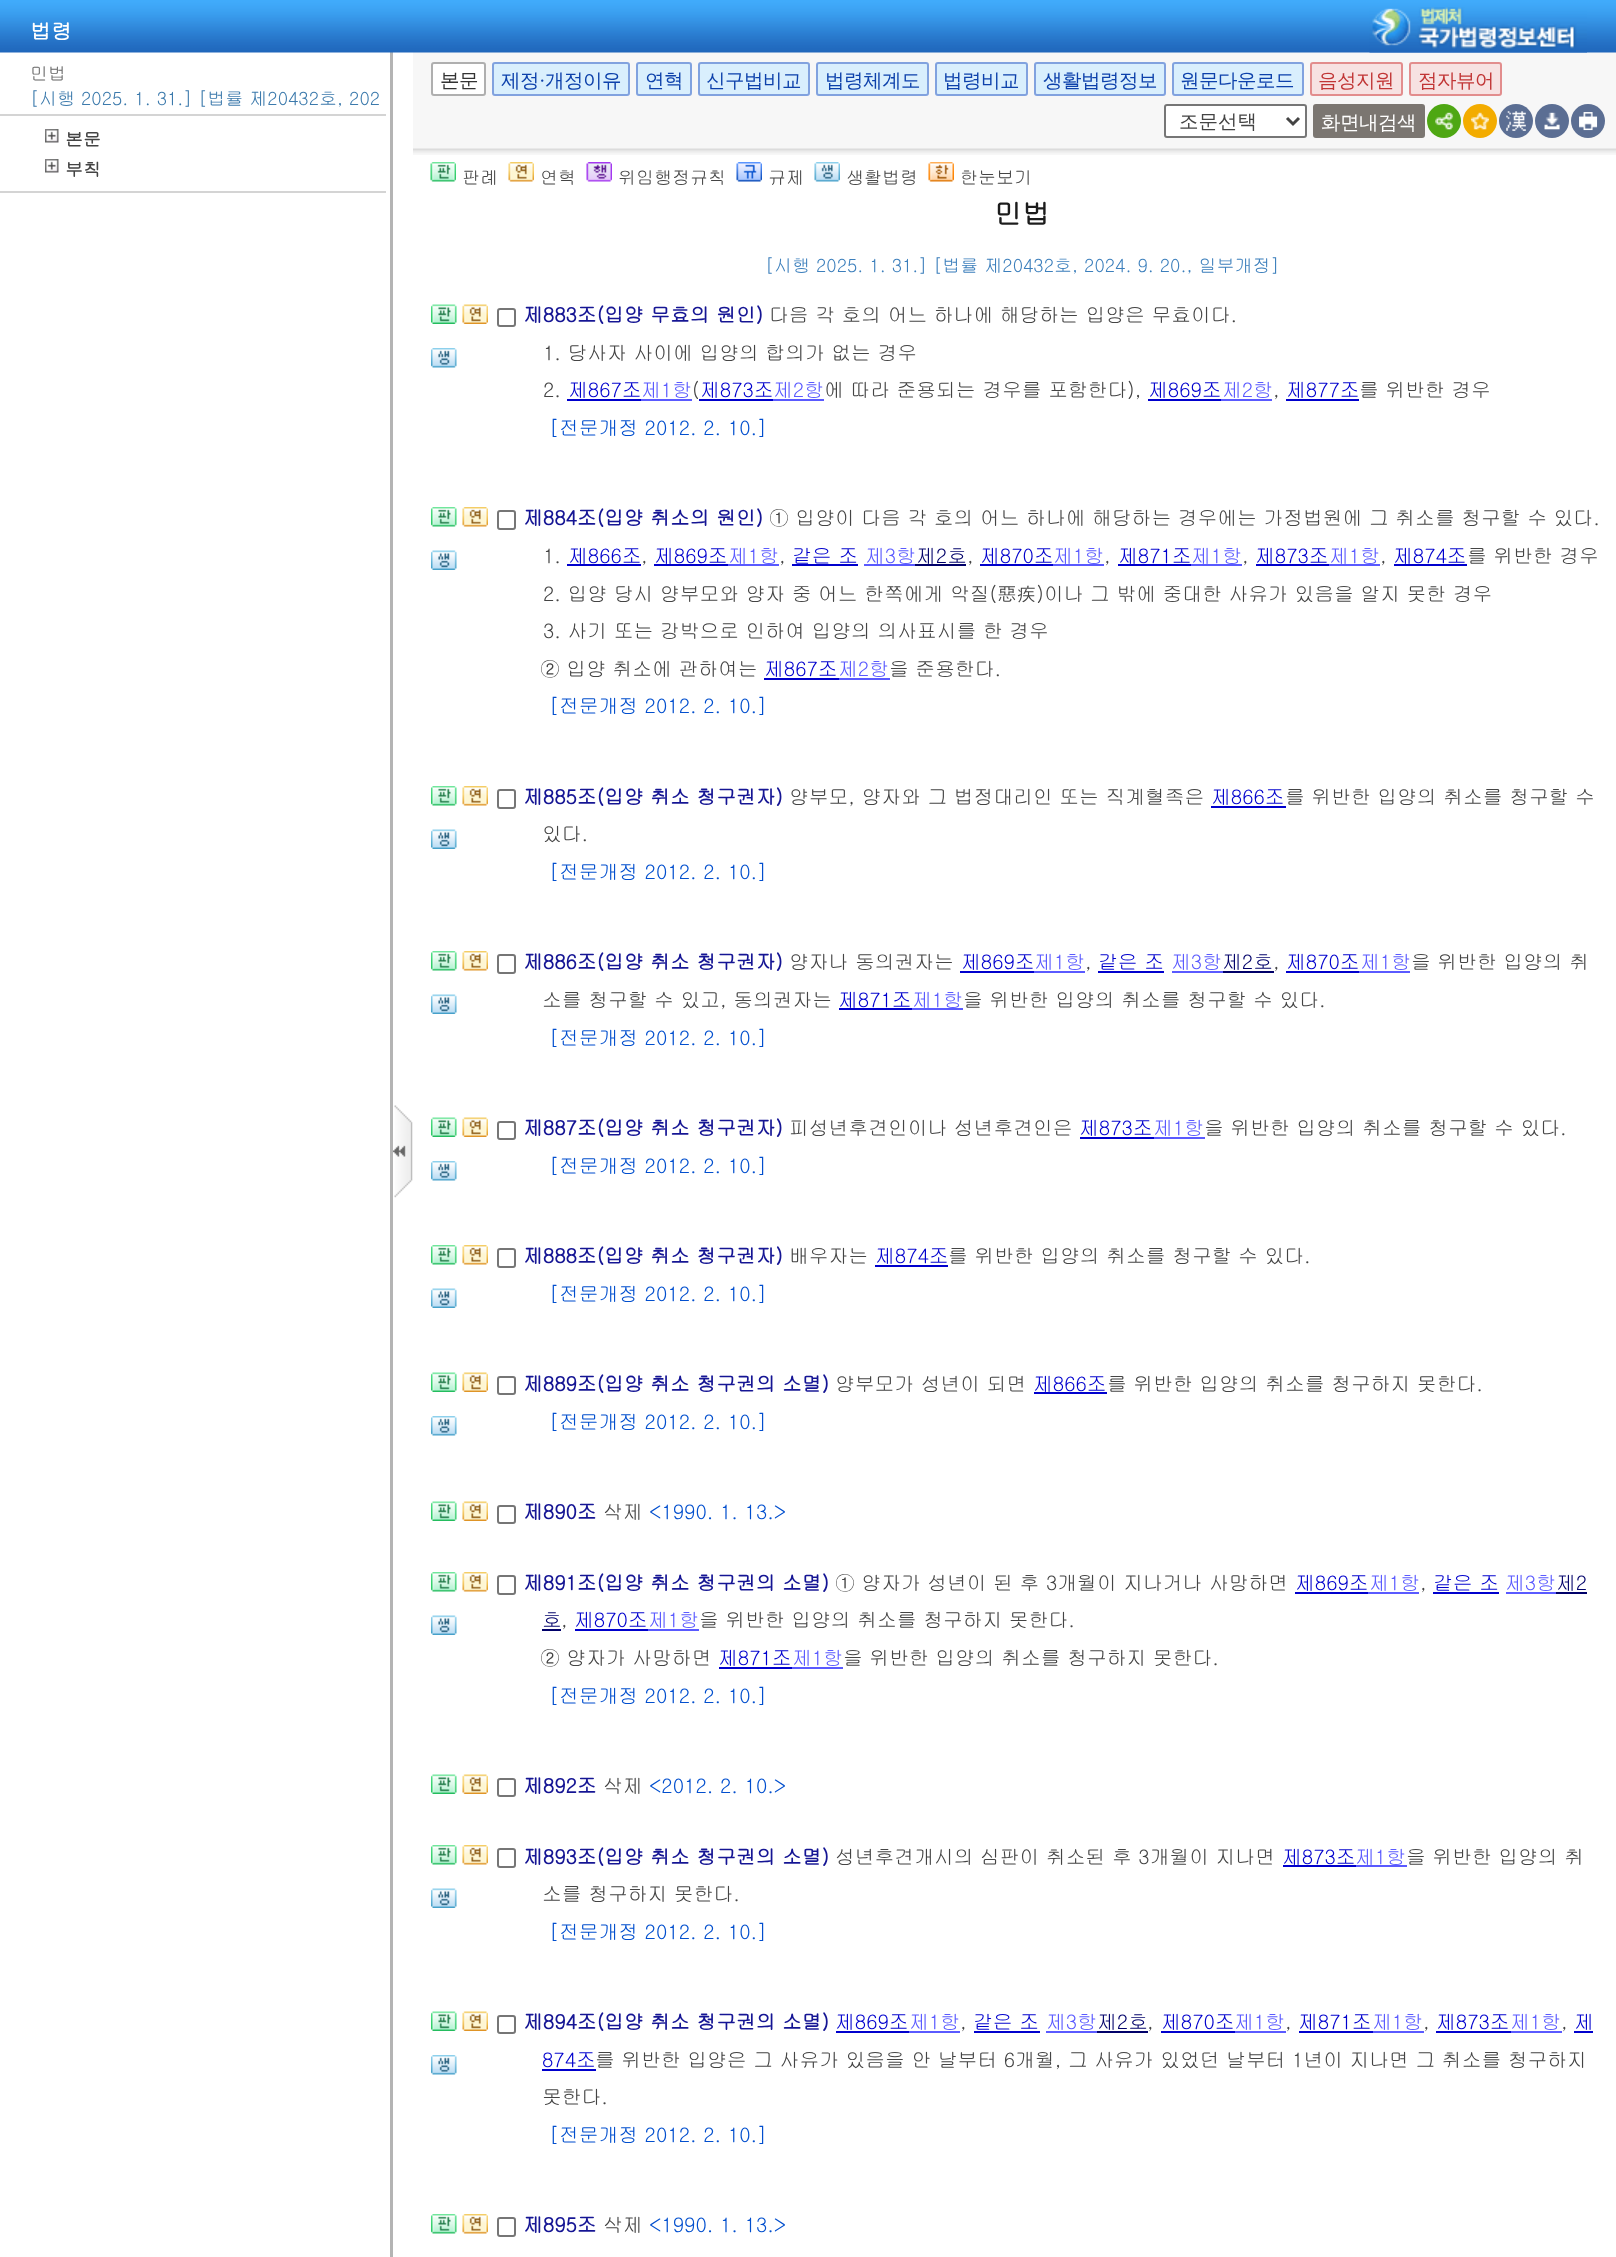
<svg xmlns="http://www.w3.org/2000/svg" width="1616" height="2257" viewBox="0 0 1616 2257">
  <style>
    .t1 { font: bold 21px Gulim; fill: #fff; }
    .t2 { font: 18px Gulim; fill: #666; }
    .t3 { font: 18px Gulim; fill: #3c7aac; }
    .t4 { font: bold 18px Gulim; fill: #444; }
    .t5 { font: 500 19.5px WenQuanYi Zen Hei; letter-spacing: -0.5px; fill: #333; }
    .t6 { font: 500 19.5px WenQuanYi Zen Hei; letter-spacing: -0.5px; fill: #0d41ab; }
    .t7 { font: 19.5px Liberation Serif; letter-spacing: -0.5px; fill: #0d41ab; }
    .t8 { font: 500 19.5px WenQuanYi Zen Hei; letter-spacing: -0.5px; fill: #c13535; }
    .t9 { font: 500 19.5px WenQuanYi Zen Hei; fill: #444; }
    .t10 { font: 500 19.5px WenQuanYi Zen Hei; letter-spacing: -0.5px; fill: #fff; }
    .t11 { font: 18px Gulim; fill: #444; }
    .t12 { font: bold 28px Gulim; fill: #1c1c1c; }
    .t13 { font: 18px Gulim; fill: #3c7fbc; }
    .t14 { font: bold 19.8px Gulim; fill: #151594; }
    .t15 { font: 19.8px Gulim; fill: #444; }
    .t16 { font: 19.8px Gulim; fill: #0000cd; }
    .t17 { font: 19.8px Gulim; fill: #5a5aff; }
    .t18 { font: 19.8px Gulim; fill: #024fce; }
    .t19 { font: 19.8px Gulim; fill: #000069; }
  </style>
  <rect width="100%" height="100%" fill="#fff"/>
  <rect x="413" y="52" width="1203" height="103" fill="#f7f7f7"/>
  <rect x="390" y="51" width="3" height="2206" fill="#b4b4b4"/>
  <image x="0" y="0" width="1616" height="53" href="images/1.png"/>
  <text x="30" y="39" class="t1">법령</text>
  <image x="1369" y="7" width="218" height="46" href="images/2.png"/>
  <rect x="0" y="191" width="386" height="2" fill="#d4d4d4"/>
  <text x="30" y="80" class="t2">민법</text>
  <text x="30" y="105" class="t3">[시행 2025. 1. 31.] [법률 제20432호, 202</text>
  <rect x="0" y="114" width="386" height="2" fill="#d4d4d4"/>
  <image x="45" y="129" width="14" height="14" href="images/3.png"/>
  <text x="65" y="146" class="t4">본문</text>
  <image x="45" y="159" width="14" height="14" href="images/3.png"/>
  <text x="65" y="176" class="t4">부칙</text>
  <image x="413" y="148" width="1203" height="6" href="images/4.png"/>
  <rect x="432" y="63" width="53" height="32" rx="2" fill="#fff" stroke="#afafaf" stroke-width="2"/>
  <text x="440" y="87" class="t5">본문</text>
  <rect x="493" y="63" width="136" height="32" rx="2" fill="#d9effd" stroke="#81a2df" stroke-width="2"/>
  <text x="501" y="87" class="t6">제정</text>
  <text x="539" y="87" class="t7">·</text>
  <text x="545" y="87" class="t6">개정이유</text>
  <rect x="637" y="63" width="54" height="32" rx="2" fill="#d9effd" stroke="#81a2df" stroke-width="2"/>
  <text x="645" y="87" class="t6">연혁</text>
  <rect x="699" y="63" width="110" height="32" rx="2" fill="#d9effd" stroke="#81a2df" stroke-width="2"/>
  <text x="706" y="87" class="t6">신구법비교</text>
  <rect x="817" y="63" width="111" height="32" rx="2" fill="#d9effd" stroke="#81a2df" stroke-width="2"/>
  <text x="825" y="87" class="t6">법령체계도</text>
  <rect x="936" y="63" width="91" height="32" rx="2" fill="#d9effd" stroke="#81a2df" stroke-width="2"/>
  <text x="943" y="87" class="t6">법령비교</text>
  <rect x="1035" y="63" width="130" height="32" rx="2" fill="#d9effd" stroke="#81a2df" stroke-width="2"/>
  <text x="1043" y="87" class="t6">생활법령정보</text>
  <rect x="1173" y="63" width="130" height="32" rx="2" fill="#d9effd" stroke="#81a2df" stroke-width="2"/>
  <text x="1180" y="87" class="t6">원문다운로드</text>
  <rect x="1311" y="63" width="91" height="32" rx="2" fill="#f7e2e2" stroke="#e28d8d" stroke-width="2"/>
  <text x="1318" y="87" class="t8">음성지원</text>
  <rect x="1410" y="63" width="91" height="32" rx="2" fill="#f7e2e2" stroke="#e28d8d" stroke-width="2"/>
  <text x="1418" y="87" class="t8">점자뷰어</text>
  <rect x="1165" y="105" width="141" height="32" rx="2" fill="#fff" stroke="#767676" stroke-width="2"/>
  <path d="M1287 118L1293 124L1299 118" fill="none" stroke="#444" stroke-width="3"/>
  <text x="1179" y="128" class="t9">조문선택</text>
  <rect x="1314" y="105" width="110" height="32" rx="2" fill="#7b7671" stroke="#7b7671" stroke-width="2"/>
  <text x="1321" y="129" class="t10">화면내검색</text>
  <circle cx="1444" cy="121" r="17" fill="#4ea713"/>
  <image x="1435" y="112" width="19" height="18" href="images/5.png"/>
  <circle cx="1480" cy="121" r="17" fill="#f3ac00"/>
  <image x="1471" y="112" width="19" height="18" href="images/6.png"/>
  <circle cx="1516" cy="121" r="17" fill="#5b6e93"/>
  <image x="1506" y="111" width="20" height="20" href="images/7.png"/>
  <circle cx="1552" cy="121" r="17" fill="#5b6e93"/>
  <image x="1544" y="112" width="16" height="18" href="images/8.png"/>
  <circle cx="1588" cy="121" r="17" fill="#5b6e93"/>
  <image x="1579" y="112" width="19" height="19" href="images/9.png"/>
  <image x="430" y="162" width="26" height="20" href="images/10.png"/>
  <text x="462" y="184" class="t11">판례</text>
  <image x="508" y="162" width="26" height="20" href="images/11.png"/>
  <text x="540" y="184" class="t11">연혁</text>
  <image x="586" y="162" width="26" height="20" href="images/12.png"/>
  <text x="618" y="184" class="t11">위임행정규칙</text>
  <image x="736" y="162" width="26" height="20" href="images/13.png"/>
  <text x="768" y="184" class="t11">규제</text>
  <image x="814" y="162" width="26" height="20" href="images/14.png"/>
  <text x="846" y="184" class="t11">생활법령</text>
  <image x="928" y="162" width="26" height="20" href="images/15.png"/>
  <text x="960" y="184" class="t11">한눈보기</text>
  <text x="994" y="224" class="t12">민법</text>
  <text x="765" y="272" class="t13">[시행 2025. 1. 31.] [법률 제20432호, 2024. 9. 20., 일부개정]</text>
  <image x="431" y="304" width="26" height="20" href="images/16.png"/>
  <image x="462" y="304" width="26" height="20" href="images/17.png"/>
  <image x="431" y="348" width="26" height="20" href="images/18.png"/>
  <rect x="498" y="309" width="17" height="17" rx="2" fill="none" stroke="#767676" stroke-width="2"/>
  <text x="523" y="322" class="t14">제883조(입양 무효의 원인)</text>
  <text x="769" y="322" class="t15">다음 각 호의 어느 하나에 해당하는 입양은 무효이다.</text>
  <text x="543" y="360" class="t15">1. 당사자 사이에 입양의 합의가 없는 경우</text>
  <text x="543" y="397" class="t15">2.</text>
  <text x="568" y="397" class="t16">제867조</text>
  <rect x="567" y="399" width="74" height="2" fill="#0000cd"/>
  <text x="641" y="397" class="t17">제1항</text>
  <rect x="641" y="399" width="51" height="2" fill="#5a5aff"/>
  <text x="692" y="397" class="t15">(</text>
  <text x="700" y="397" class="t16">제873조</text>
  <rect x="699" y="399" width="74" height="2" fill="#0000cd"/>
  <text x="773" y="397" class="t17">제2항</text>
  <rect x="773" y="399" width="51" height="2" fill="#5a5aff"/>
  <text x="824" y="397" class="t15">에 따라 준용되는 경우를 포함한다),</text>
  <text x="1148" y="397" class="t16">제869조</text>
  <rect x="1148" y="399" width="73" height="2" fill="#0000cd"/>
  <text x="1222" y="397" class="t17">제2항</text>
  <rect x="1221" y="399" width="51" height="2" fill="#5a5aff"/>
  <text x="1273" y="397" class="t15">,</text>
  <text x="1286" y="397" class="t16">제877조</text>
  <rect x="1286" y="399" width="73" height="2" fill="#0000cd"/>
  <text x="1359" y="397" class="t15">를 위반한 경우</text>
  <text x="549" y="435" class="t18">[전문개정 2012. 2. 10.]</text>
  <image x="431" y="507" width="26" height="20" href="images/19.png"/>
  <image x="462" y="507" width="26" height="20" href="images/11.png"/>
  <image x="431" y="550" width="26" height="20" href="images/20.png"/>
  <rect x="498" y="511" width="17" height="18" rx="2" fill="none" stroke="#767676" stroke-width="2"/>
  <text x="523" y="525" class="t14">제884조(입양 취소의 원인)</text>
  <text x="769" y="525" class="t15">① 입양이 다음 각 호의 어느 하나에 해당하는 경우에는 가정법원에 그 취소를 청구할 수 있다.</text>
  <text x="543" y="563" class="t15">1.</text>
  <text x="568" y="563" class="t16">제866조</text>
  <rect x="567" y="564" width="74" height="2" fill="#0000cd"/>
  <text x="641" y="563" class="t15">,</text>
  <text x="654" y="563" class="t16">제869조</text>
  <rect x="654" y="564" width="74" height="2" fill="#0000cd"/>
  <text x="728" y="563" class="t17">제1항</text>
  <rect x="728" y="564" width="51" height="2" fill="#5a5aff"/>
  <text x="779" y="563" class="t15">,</text>
  <text x="792" y="563" class="t16">같은 조</text>
  <rect x="792" y="564" width="66" height="2" fill="#0000cd"/>
  <text x="865" y="563" class="t17">제3항</text>
  <rect x="864" y="564" width="51" height="2" fill="#5a5aff"/>
  <text x="916" y="563" class="t19">제2호</text>
  <rect x="915" y="564" width="51" height="2" fill="#000069"/>
  <text x="967" y="563" class="t15">,</text>
  <text x="980" y="563" class="t16">제870조</text>
  <rect x="980" y="564" width="73" height="2" fill="#0000cd"/>
  <text x="1053" y="563" class="t17">제1항</text>
  <rect x="1053" y="564" width="51" height="2" fill="#5a5aff"/>
  <text x="1104" y="563" class="t15">,</text>
  <text x="1118" y="563" class="t16">제871조</text>
  <rect x="1118" y="564" width="73" height="2" fill="#0000cd"/>
  <text x="1191" y="563" class="t17">제1항</text>
  <rect x="1191" y="564" width="51" height="2" fill="#5a5aff"/>
  <text x="1242" y="563" class="t15">,</text>
  <text x="1255" y="563" class="t16">제873조</text>
  <rect x="1256" y="564" width="73" height="2" fill="#0000cd"/>
  <text x="1329" y="563" class="t17">제1항</text>
  <rect x="1329" y="564" width="51" height="2" fill="#5a5aff"/>
  <text x="1380" y="563" class="t15">,</text>
  <text x="1393" y="563" class="t16">제874조</text>
  <rect x="1394" y="564" width="73" height="2" fill="#0000cd"/>
  <text x="1467" y="563" class="t15">를 위반한 경우</text>
  <text x="543" y="601" class="t15">2. 입양 당시 양부모와 양자 중 어느 한쪽에게 악질(惡疾)이나 그 밖에 중대한 사유가 있음을 알지 못한 경우</text>
  <text x="543" y="638" class="t15">3. 사기 또는 강박으로 인하여 입양의 의사표시를 한 경우</text>
  <text x="540" y="676" class="t15">② 입양 취소에 관하여는</text>
  <text x="764" y="676" class="t16">제867조</text>
  <rect x="764" y="678" width="75" height="2" fill="#0000cd"/>
  <text x="838" y="676" class="t17">제2항</text>
  <rect x="839" y="678" width="51" height="2" fill="#5a5aff"/>
  <text x="889" y="676" class="t15">을 준용한다.</text>
  <text x="549" y="713" class="t18">[전문개정 2012. 2. 10.]</text>
  <image x="431" y="786" width="26" height="20" href="images/19.png"/>
  <image x="462" y="786" width="26" height="20" href="images/11.png"/>
  <image x="431" y="829" width="26" height="20" href="images/20.png"/>
  <rect x="498" y="790" width="17" height="18" rx="2" fill="none" stroke="#767676" stroke-width="2"/>
  <text x="523" y="804" class="t14">제885조(입양 취소 청구권자)</text>
  <text x="789" y="804" class="t15">양부모, 양자와 그 법정대리인 또는 직계혈족은</text>
  <text x="1211" y="804" class="t16">제866조</text>
  <rect x="1211" y="806" width="75" height="2" fill="#0000cd"/>
  <text x="1285" y="804" class="t15">를 위반한 입양의 취소를 청구할 수</text>
  <text x="542" y="841" class="t15">있다.</text>
  <text x="549" y="879" class="t18">[전문개정 2012. 2. 10.]</text>
  <image x="431" y="951" width="26" height="20" href="images/19.png"/>
  <image x="462" y="951" width="26" height="20" href="images/11.png"/>
  <image x="431" y="994" width="26" height="20" href="images/20.png"/>
  <rect x="498" y="955" width="17" height="18" rx="2" fill="none" stroke="#767676" stroke-width="2"/>
  <text x="523" y="969" class="t14">제886조(입양 취소 청구권자)</text>
  <text x="789" y="969" class="t15">양자나 동의권자는</text>
  <text x="961" y="969" class="t16">제869조</text>
  <rect x="960" y="971" width="74" height="2" fill="#0000cd"/>
  <text x="1034" y="969" class="t17">제1항</text>
  <rect x="1034" y="971" width="51" height="2" fill="#5a5aff"/>
  <text x="1085" y="969" class="t15">,</text>
  <text x="1098" y="969" class="t16">같은 조</text>
  <rect x="1098" y="971" width="66" height="2" fill="#0000cd"/>
  <text x="1171" y="969" class="t17">제3항</text>
  <rect x="1172" y="971" width="51" height="2" fill="#5a5aff"/>
  <text x="1222" y="969" class="t19">제2호</text>
  <rect x="1223" y="971" width="51" height="2" fill="#000069"/>
  <text x="1273" y="969" class="t15">,</text>
  <text x="1286" y="969" class="t16">제870조</text>
  <rect x="1286" y="971" width="73" height="2" fill="#0000cd"/>
  <text x="1360" y="969" class="t17">제1항</text>
  <rect x="1359" y="971" width="51" height="2" fill="#5a5aff"/>
  <text x="1411" y="969" class="t15">을 위반한 입양의 취</text>
  <text x="542" y="1007" class="t15">소를 청구할 수 있고, 동의권자는</text>
  <text x="838" y="1007" class="t16">제871조</text>
  <rect x="839" y="1008" width="73" height="2" fill="#0000cd"/>
  <text x="912" y="1007" class="t17">제1항</text>
  <rect x="912" y="1008" width="51" height="2" fill="#5a5aff"/>
  <text x="963" y="1007" class="t15">을 위반한 입양의 취소를 청구할 수 있다.</text>
  <text x="549" y="1045" class="t18">[전문개정 2012. 2. 10.]</text>
  <image x="431" y="1117" width="26" height="20" href="images/16.png"/>
  <image x="462" y="1117" width="26" height="20" href="images/17.png"/>
  <image x="431" y="1161" width="26" height="20" href="images/18.png"/>
  <rect x="498" y="1122" width="17" height="17" rx="2" fill="none" stroke="#767676" stroke-width="2"/>
  <text x="523" y="1135" class="t14">제887조(입양 취소 청구권자)</text>
  <text x="789" y="1135" class="t15">피성년후견인이나 성년후견인은</text>
  <text x="1079" y="1135" class="t16">제873조</text>
  <rect x="1080" y="1137" width="74" height="2" fill="#0000cd"/>
  <text x="1153" y="1135" class="t17">제1항</text>
  <rect x="1154" y="1137" width="51" height="2" fill="#5a5aff"/>
  <text x="1204" y="1135" class="t15">을 위반한 입양의 취소를 청구할 수 있다.</text>
  <text x="549" y="1173" class="t18">[전문개정 2012. 2. 10.]</text>
  <image x="431" y="1245" width="26" height="20" href="images/19.png"/>
  <image x="462" y="1245" width="26" height="20" href="images/11.png"/>
  <image x="431" y="1288" width="26" height="20" href="images/20.png"/>
  <rect x="498" y="1249" width="17" height="18" rx="2" fill="none" stroke="#767676" stroke-width="2"/>
  <text x="523" y="1263" class="t14">제888조(입양 취소 청구권자)</text>
  <text x="789" y="1263" class="t15">배우자는</text>
  <text x="875" y="1263" class="t16">제874조</text>
  <rect x="875" y="1265" width="73" height="2" fill="#0000cd"/>
  <text x="948" y="1263" class="t15">를 위반한 입양의 취소를 청구할 수 있다.</text>
  <text x="549" y="1301" class="t18">[전문개정 2012. 2. 10.]</text>
  <image x="431" y="1372" width="26" height="20" href="images/16.png"/>
  <image x="462" y="1372" width="26" height="20" href="images/17.png"/>
  <image x="431" y="1416" width="26" height="20" href="images/18.png"/>
  <rect x="498" y="1377" width="17" height="17" rx="2" fill="none" stroke="#767676" stroke-width="2"/>
  <text x="523" y="1391" class="t14">제889조(입양 취소 청구권의 소멸)</text>
  <text x="835" y="1391" class="t15">양부모가 성년이 되면</text>
  <text x="1033" y="1391" class="t16">제866조</text>
  <rect x="1034" y="1392" width="73" height="2" fill="#0000cd"/>
  <text x="1107" y="1391" class="t15">를 위반한 입양의 취소를 청구하지 못한다.</text>
  <text x="549" y="1429" class="t18">[전문개정 2012. 2. 10.]</text>
  <image x="431" y="1501" width="26" height="20" href="images/16.png"/>
  <image x="462" y="1501" width="26" height="20" href="images/17.png"/>
  <rect x="498" y="1506" width="17" height="17" rx="2" fill="none" stroke="#767676" stroke-width="2"/>
  <text x="523" y="1519" class="t14">제890조</text>
  <text x="603" y="1519" class="t15">삭제</text>
  <text x="649" y="1519" class="t18">&lt;1990. 1. 13.&gt;</text>
  <image x="431" y="1572" width="26" height="20" href="images/19.png"/>
  <image x="462" y="1572" width="26" height="20" href="images/11.png"/>
  <image x="431" y="1615" width="26" height="20" href="images/20.png"/>
  <rect x="498" y="1576" width="17" height="18" rx="2" fill="none" stroke="#767676" stroke-width="2"/>
  <text x="523" y="1590" class="t14">제891조(입양 취소 청구권의 소멸)</text>
  <text x="835" y="1590" class="t15">① 양자가 성년이 된 후 3개월이 지나거나 사망하면</text>
  <text x="1295" y="1590" class="t16">제869조</text>
  <rect x="1295" y="1592" width="73" height="2" fill="#0000cd"/>
  <text x="1369" y="1590" class="t17">제1항</text>
  <rect x="1368" y="1592" width="51" height="2" fill="#5a5aff"/>
  <text x="1420" y="1590" class="t15">,</text>
  <text x="1433" y="1590" class="t16">같은 조</text>
  <rect x="1433" y="1592" width="66" height="2" fill="#0000cd"/>
  <text x="1505" y="1590" class="t17">제3항</text>
  <rect x="1506" y="1592" width="50" height="2" fill="#5a5aff"/>
  <text x="1556" y="1590" class="t19">제2</text>
  <rect x="1556" y="1592" width="31" height="2" fill="#000069"/>
  <text x="542" y="1627" class="t19">호</text>
  <rect x="542" y="1629" width="19" height="2" fill="#000069"/>
  <text x="561" y="1627" class="t15">,</text>
  <text x="574" y="1627" class="t16">제870조</text>
  <rect x="575" y="1629" width="73" height="2" fill="#0000cd"/>
  <text x="648" y="1627" class="t17">제1항</text>
  <rect x="648" y="1629" width="51" height="2" fill="#5a5aff"/>
  <text x="699" y="1627" class="t15">을 위반한 입양의 취소를 청구하지 못한다.</text>
  <text x="540" y="1665" class="t15">② 양자가 사망하면</text>
  <text x="718" y="1665" class="t16">제871조</text>
  <rect x="719" y="1667" width="73" height="2" fill="#0000cd"/>
  <text x="792" y="1665" class="t17">제1항</text>
  <rect x="792" y="1667" width="51" height="2" fill="#5a5aff"/>
  <text x="843" y="1665" class="t15">을 위반한 입양의 취소를 청구하지 못한다.</text>
  <text x="549" y="1703" class="t18">[전문개정 2012. 2. 10.]</text>
  <image x="431" y="1774" width="26" height="20" href="images/16.png"/>
  <image x="462" y="1774" width="26" height="20" href="images/17.png"/>
  <rect x="498" y="1779" width="17" height="17" rx="2" fill="none" stroke="#767676" stroke-width="2"/>
  <text x="523" y="1793" class="t14">제892조</text>
  <text x="603" y="1793" class="t15">삭제</text>
  <text x="649" y="1793" class="t18">&lt;2012. 2. 10.&gt;</text>
  <image x="431" y="1845" width="26" height="20" href="images/19.png"/>
  <image x="462" y="1845" width="26" height="20" href="images/11.png"/>
  <image x="431" y="1888" width="26" height="20" href="images/20.png"/>
  <rect x="498" y="1849" width="17" height="18" rx="2" fill="none" stroke="#767676" stroke-width="2"/>
  <text x="523" y="1864" class="t14">제893조(입양 취소 청구권의 소멸)</text>
  <text x="835" y="1864" class="t15">성년후견개시의 심판이 취소된 후 3개월이 지나면</text>
  <text x="1282" y="1864" class="t16">제873조</text>
  <rect x="1283" y="1865" width="73" height="2" fill="#0000cd"/>
  <text x="1355" y="1864" class="t17">제1항</text>
  <rect x="1356" y="1865" width="51" height="2" fill="#5a5aff"/>
  <text x="1406" y="1864" class="t15">을 위반한 입양의 취</text>
  <text x="542" y="1901" class="t15">소를 청구하지 못한다.</text>
  <text x="549" y="1939" class="t18">[전문개정 2012. 2. 10.]</text>
  <image x="431" y="2011" width="26" height="20" href="images/16.png"/>
  <image x="462" y="2011" width="26" height="20" href="images/17.png"/>
  <image x="431" y="2055" width="26" height="20" href="images/18.png"/>
  <rect x="498" y="2016" width="17" height="17" rx="2" fill="none" stroke="#767676" stroke-width="2"/>
  <text x="523" y="2029" class="t14">제894조(입양 취소 청구권의 소멸)</text>
  <text x="835" y="2029" class="t16">제869조</text>
  <rect x="836" y="2031" width="73" height="2" fill="#0000cd"/>
  <text x="909" y="2029" class="t17">제1항</text>
  <rect x="909" y="2031" width="51" height="2" fill="#5a5aff"/>
  <text x="960" y="2029" class="t15">,</text>
  <text x="973" y="2029" class="t16">같은 조</text>
  <rect x="974" y="2031" width="66" height="2" fill="#0000cd"/>
  <text x="1046" y="2029" class="t17">제3항</text>
  <rect x="1046" y="2031" width="51" height="2" fill="#5a5aff"/>
  <text x="1097" y="2029" class="t19">제2호</text>
  <rect x="1097" y="2031" width="51" height="2" fill="#000069"/>
  <text x="1147" y="2029" class="t15">,</text>
  <text x="1161" y="2029" class="t16">제870조</text>
  <rect x="1161" y="2031" width="74" height="2" fill="#0000cd"/>
  <text x="1234" y="2029" class="t17">제1항</text>
  <rect x="1235" y="2031" width="51" height="2" fill="#5a5aff"/>
  <text x="1285" y="2029" class="t15">,</text>
  <text x="1298" y="2029" class="t16">제871조</text>
  <rect x="1299" y="2031" width="74" height="2" fill="#0000cd"/>
  <text x="1372" y="2029" class="t17">제1항</text>
  <rect x="1373" y="2031" width="51" height="2" fill="#5a5aff"/>
  <text x="1423" y="2029" class="t15">,</text>
  <text x="1436" y="2029" class="t16">제873조</text>
  <rect x="1436" y="2031" width="75" height="2" fill="#0000cd"/>
  <text x="1510" y="2029" class="t17">제1항</text>
  <rect x="1511" y="2031" width="51" height="2" fill="#5a5aff"/>
  <text x="1561" y="2029" class="t15">,</text>
  <text x="1574" y="2029" class="t16">제</text>
  <rect x="1574" y="2031" width="19" height="2" fill="#0000cd"/>
  <text x="542" y="2067" class="t16">874조</text>
  <rect x="542" y="2069" width="54" height="2" fill="#0000cd"/>
  <text x="595" y="2067" class="t15">를 위반한 입양은 그 사유가 있음을 안 날부터 6개월, 그 사유가 있었던 날부터 1년이 지나면 그 취소를 청구하지</text>
  <text x="542" y="2104" class="t15">못한다.</text>
  <text x="549" y="2142" class="t18">[전문개정 2012. 2. 10.]</text>
  <image x="431" y="2214" width="26" height="20" href="images/19.png"/>
  <image x="462" y="2214" width="26" height="20" href="images/11.png"/>
  <rect x="498" y="2218" width="17" height="18" rx="2" fill="none" stroke="#767676" stroke-width="2"/>
  <text x="523" y="2232" class="t14">제895조</text>
  <text x="603" y="2232" class="t15">삭제</text>
  <text x="649" y="2232" class="t18">&lt;1990. 1. 13.&gt;</text>
  <image x="393" y="1105" width="20" height="93" href="images/21.png"/>
</svg>
